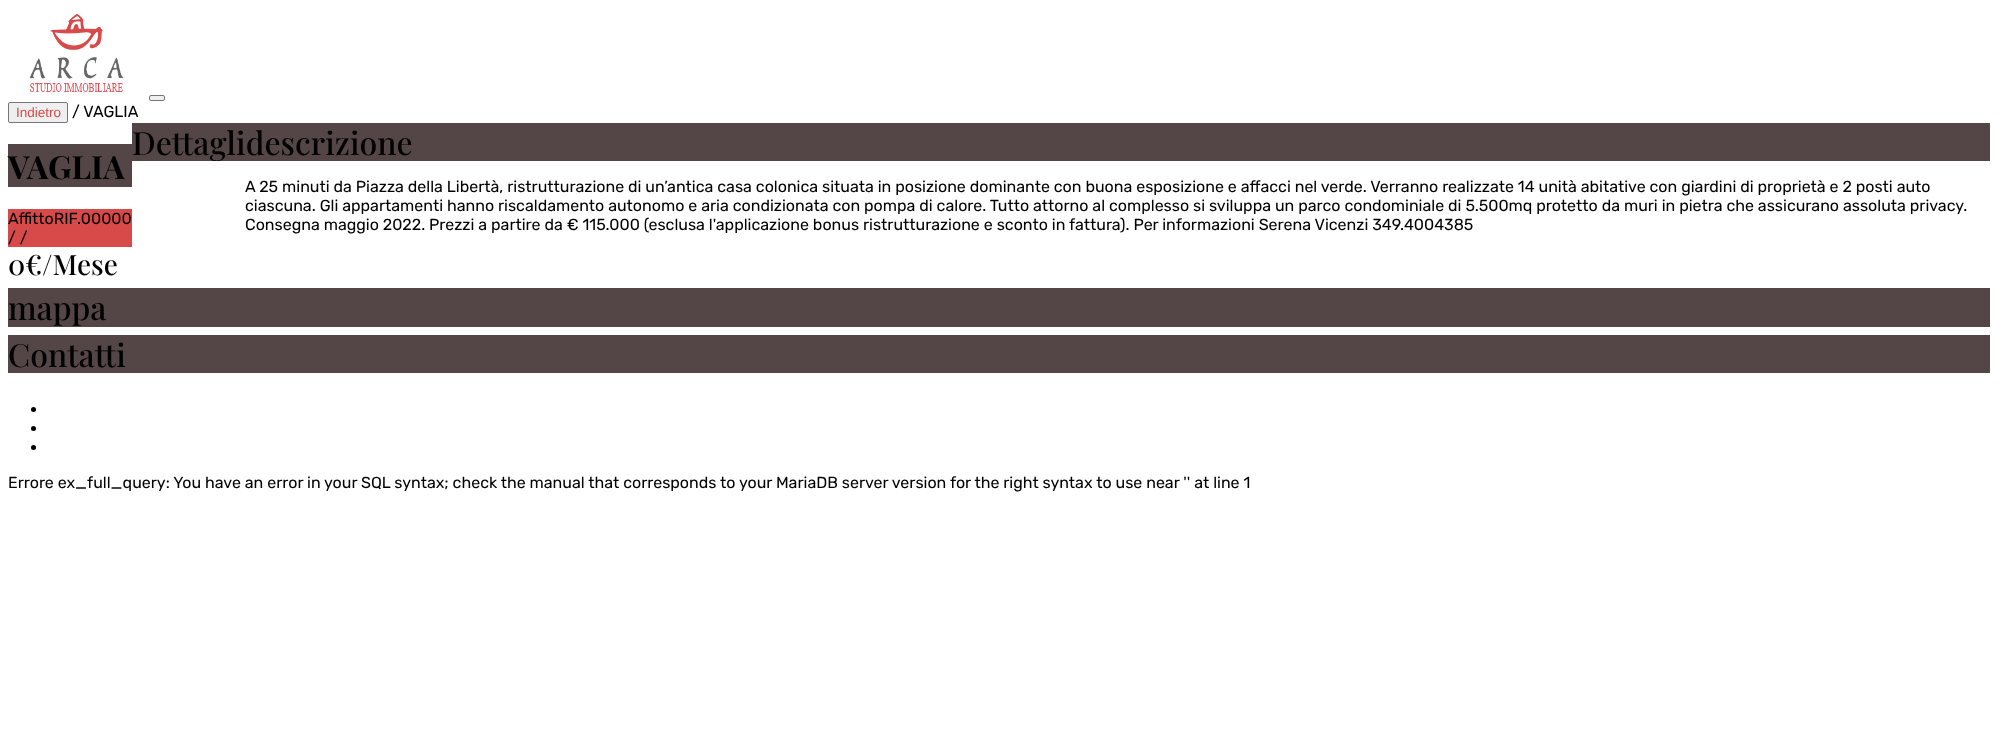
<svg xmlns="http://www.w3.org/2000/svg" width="1998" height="735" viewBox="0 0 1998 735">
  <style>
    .t1 { font: 13.5px Liberation Sans; fill: #d84949; }
    .t2 { font: 16px Rubik; fill: #000; }
    .t3 { font: 500 32px Playfair Display; fill: #000; }
    .t4 { font: bold 32px Playfair Display; fill: #000; }
    .t5 { font: 500 28px Playfair Display; fill: #000; }
  </style>
  <rect width="100%" height="100%" fill="#fff"/>
  <image x="29" y="13" width="95" height="79" href="images/1.png"/>
  <rect x="149.5" y="95.5" width="15" height="5" rx="1.5" fill="#efefef" stroke="#767676"/>
  <rect x="8.5" y="102.5" width="59" height="20" rx="1.5" fill="#efefef" stroke="#767676"/>
  <text x="16" y="117" class="t1">Indietro</text>
  <text x="72" y="117" class="t2">/ VAGLIA</text>
  <rect x="132" y="123" width="1858" height="38" fill="#544646"/>
  <text x="132" y="155" class="t3">Dettaglidescrizione</text>
  <rect x="8" y="144" width="124" height="43" fill="#544646"/>
  <text x="8" y="179" class="t4">VAGLIA</text>
  <rect x="8" y="209" width="124" height="38" fill="#d84949"/>
  <text x="8" y="224" class="t2">AffittoRIF.00000</text>
  <text x="8" y="243" class="t2">/ /</text>
  <text x="8" y="275" class="t5">0€/Mese</text>
  <text x="245" y="192" class="t2">A 25 minuti da Piazza della Libertà, ristrutturazione di un’antica casa colonica situata in posizione dominante con buona esposizione e affacci nel verde. Verranno realizzate 14 unità abitative con giardini di proprietà e 2 posti auto</text>
  <text x="245" y="211" class="t2">ciascuna. Gli appartamenti hanno riscaldamento autonomo e aria condizionata con pompa di calore. Tutto attorno al complesso si sviluppa un parco condominiale di 5.500mq protetto da muri in pietra che assicurano assoluta privacy.</text>
  <text x="245" y="230" class="t2">Consegna maggio 2022. Prezzi a partire da € 115.000 (esclusa l'applicazione bonus ristrutturazione e sconto in fattura). Per informazioni Serena Vicenzi 349.4004385</text>
  <rect x="8" y="288" width="1982" height="39" fill="#544646"/>
  <text x="8" y="320" class="t3">mappa</text>
  <rect x="8" y="335" width="1982" height="38" fill="#544646"/>
  <text x="8" y="367" class="t3">Contatti</text>
  <circle cx="33.5" cy="409.5" r="2.5" fill="#000"/>
  <circle cx="33.5" cy="428.5" r="2.5" fill="#000"/>
  <circle cx="33.5" cy="447.5" r="2.5" fill="#000"/>
  <text x="8" y="488" class="t2">Errore ex_full_query: You have an error in your SQL syntax; check the manual that corresponds to your MariaDB server version for the right syntax to use near '' at line 1</text>
</svg>
